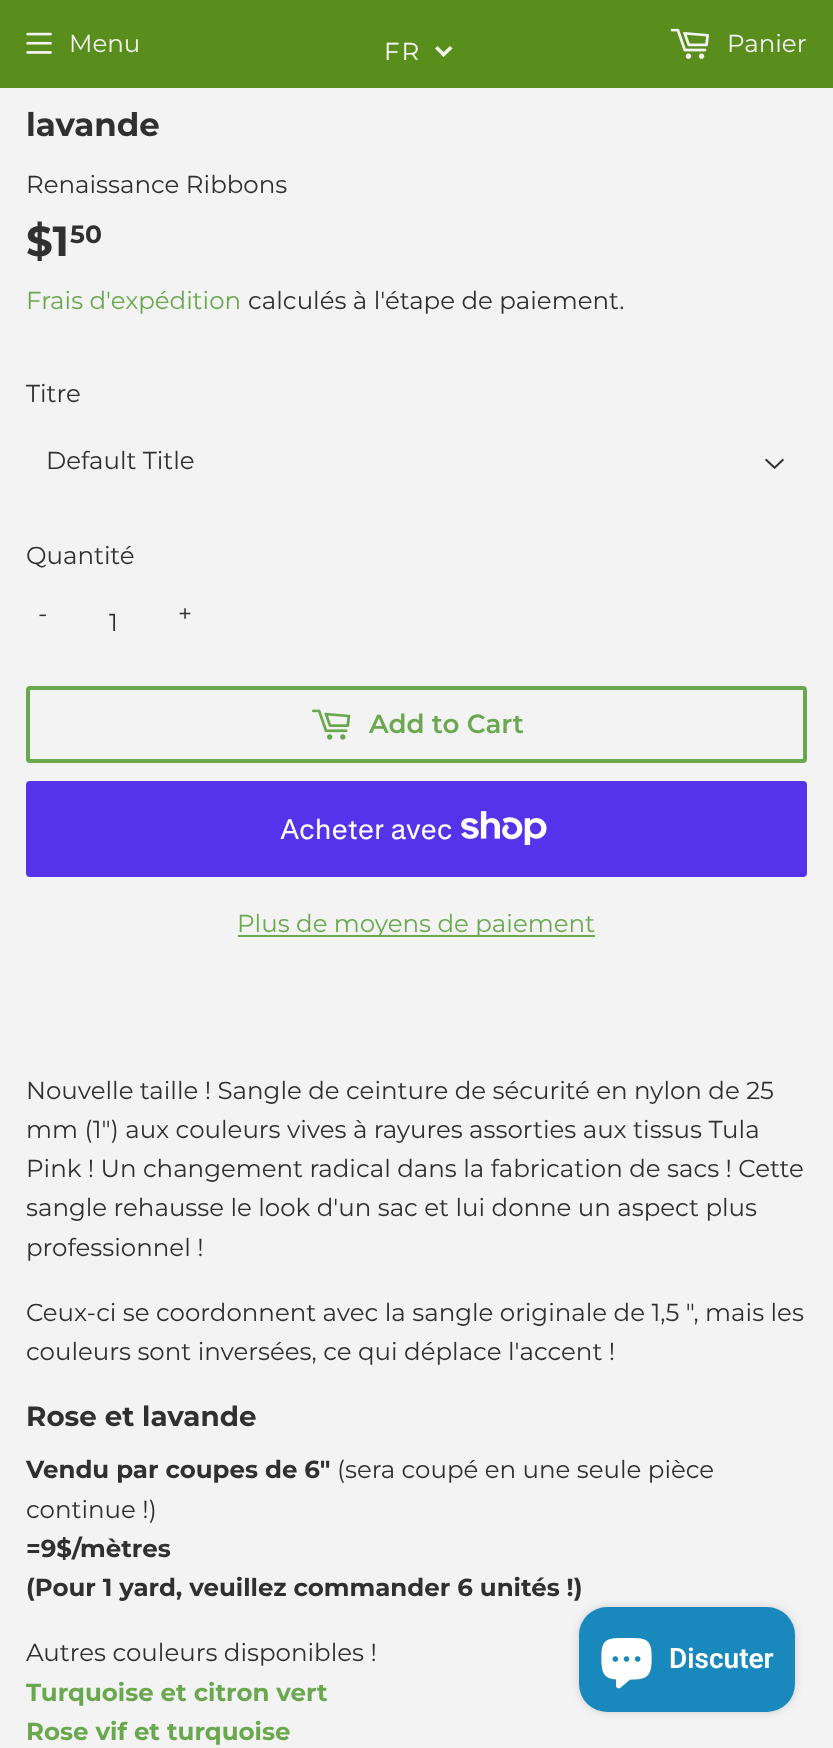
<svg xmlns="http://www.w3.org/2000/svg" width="833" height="1748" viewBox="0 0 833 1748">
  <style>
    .t1 { font: 24.5px Montserrat; fill: #f3f3f3; }
    .t2 { font: 24.5px Montserrat; letter-spacing: 2px; fill: #fff; }
    .t3 { font: bold 32.5px Montserrat; fill: #303030; }
    .t4 { font: 24.5px Montserrat; fill: #303030; }
    .t5 { font: bold 42px Montserrat; fill: #303030; }
    .t6 { font: bold 25px Montserrat; fill: #303030; }
    .t7 { font: 24.5px Montserrat; fill: #6aa84f; }
    .t8 { font: 600 26.25px Montserrat; fill: #6aa84f; }
    .t9 { font: 28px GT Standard; fill: #fff; }
    .t10 { font: bold 27.75px Montserrat; fill: #303030; }
    .t11 { font: bold 24.5px Montserrat; fill: #303030; }
    .t12 { font: bold 24.5px Montserrat; fill: #6aa84f; }
    .t13 { font: 600 28px Roboto; fill: #fff; }
  </style>
  <rect width="100%" height="100%" fill="#f3f3f3"/>
  <rect x="0" y="0" width="833" height="88" fill="#598e1c"/>
  <image x="26" y="32" width="26" height="22" href="images/1.png"/>
  <text x="69" y="52" class="t1">Menu</text>
  <image x="670" y="28" width="39" height="31" href="images/2.png"/>
  <text x="727" y="52" class="t1">Panier</text>
  <text x="384" y="60" class="t2">FR</text>
  <path d="M450 46L452.5 48.5L443.5 57L441 54.5Z" fill="#eef4e8"/>
  <path d="M437.5 46L446 54.5L443.5 57L435 48.5Z" fill="#eef4e8"/>
  <text x="26" y="136" class="t3">lavande</text>
  <text x="26" y="193" class="t4">Renaissance Ribbons</text>
  <text x="26" y="256" class="t5">$1</text>
  <text x="70" y="243" class="t6">50</text>
  <text x="26" y="309" class="t7">Frais d'expédition</text>
  <text x="248" y="309" class="t4">calculés à l'étape de paiement.</text>
  <text x="26" y="402" class="t4">Titre</text>
  <image x="765" y="458" width="19" height="11" href="images/3.png"/>
  <text x="46" y="469" class="t4">Default Title</text>
  <text x="26" y="564" class="t4">Quantité</text>
  <text x="38" y="622" class="t4">-</text>
  <text x="109" y="631" class="t4">1</text>
  <text x="178" y="622" class="t4">+</text>
  <rect x="28" y="688" width="777" height="73" rx="2" fill="none" stroke="#6aa84f" stroke-width="4"/>
  <image x="311" y="709" width="40" height="31" href="images/4.png"/>
  <text x="369" y="733" class="t8">Add to Cart</text>
  <rect x="26" y="781" width="781" height="96" rx="4" fill="#5433eb"/>
  <text x="280" y="839" class="t9">Acheter avec</text>
  <image x="461" y="811" width="86" height="34" href="images/5.png"/>
  <rect x="238" y="935" width="357" height="2" fill="#6aa84f"/>
  <text x="237" y="932" class="t7">Plus de moyens de paiement</text>
  <text x="26" y="1099" class="t4">Nouvelle taille ! Sangle de ceinture de sécurité en nylon de 25</text>
  <text x="26" y="1138" class="t4">mm (1") aux couleurs vives à rayures assorties aux tissus Tula</text>
  <text x="26" y="1177" class="t4">Pink ! Un changement radical dans la fabrication de sacs ! Cette</text>
  <text x="26" y="1216" class="t4">sangle rehausse le look d'un sac et lui donne un aspect plus</text>
  <text x="26" y="1256" class="t4">professionnel !</text>
  <text x="26" y="1321" class="t4">Ceux-ci se coordonnent avec la sangle originale de 1,5 ", mais les</text>
  <text x="26" y="1360" class="t4">couleurs sont inversées, ce qui déplace l'accent !</text>
  <text x="26" y="1426" class="t10">Rose et lavande</text>
  <text x="26" y="1478" class="t11">Vendu par coupes de 6"</text>
  <text x="337" y="1478" class="t4">(sera coupé en une seule pièce</text>
  <text x="26" y="1518" class="t4">continue !)</text>
  <text x="26" y="1557" class="t11">=9$/mètres</text>
  <text x="26" y="1596" class="t11">(Pour 1 yard, veuillez commander 6 unités !)</text>
  <text x="26" y="1661" class="t4">Autres couleurs disponibles !</text>
  <text x="26" y="1701" class="t12">Turquoise et citron vert</text>
  <text x="26" y="1740" class="t12">Rose vif et turquoise</text>
  <rect x="579" y="1607" width="216" height="105" rx="28" fill="#00000026" filter="blur(4.5px)"/>
  <rect x="579" y="1607" width="216" height="105" rx="28" fill="#1989bd"/>
  <image x="601" y="1638" width="51" height="51" href="images/6.png"/>
  <text x="669" y="1668" class="t13">Discuter</text>
</svg>
